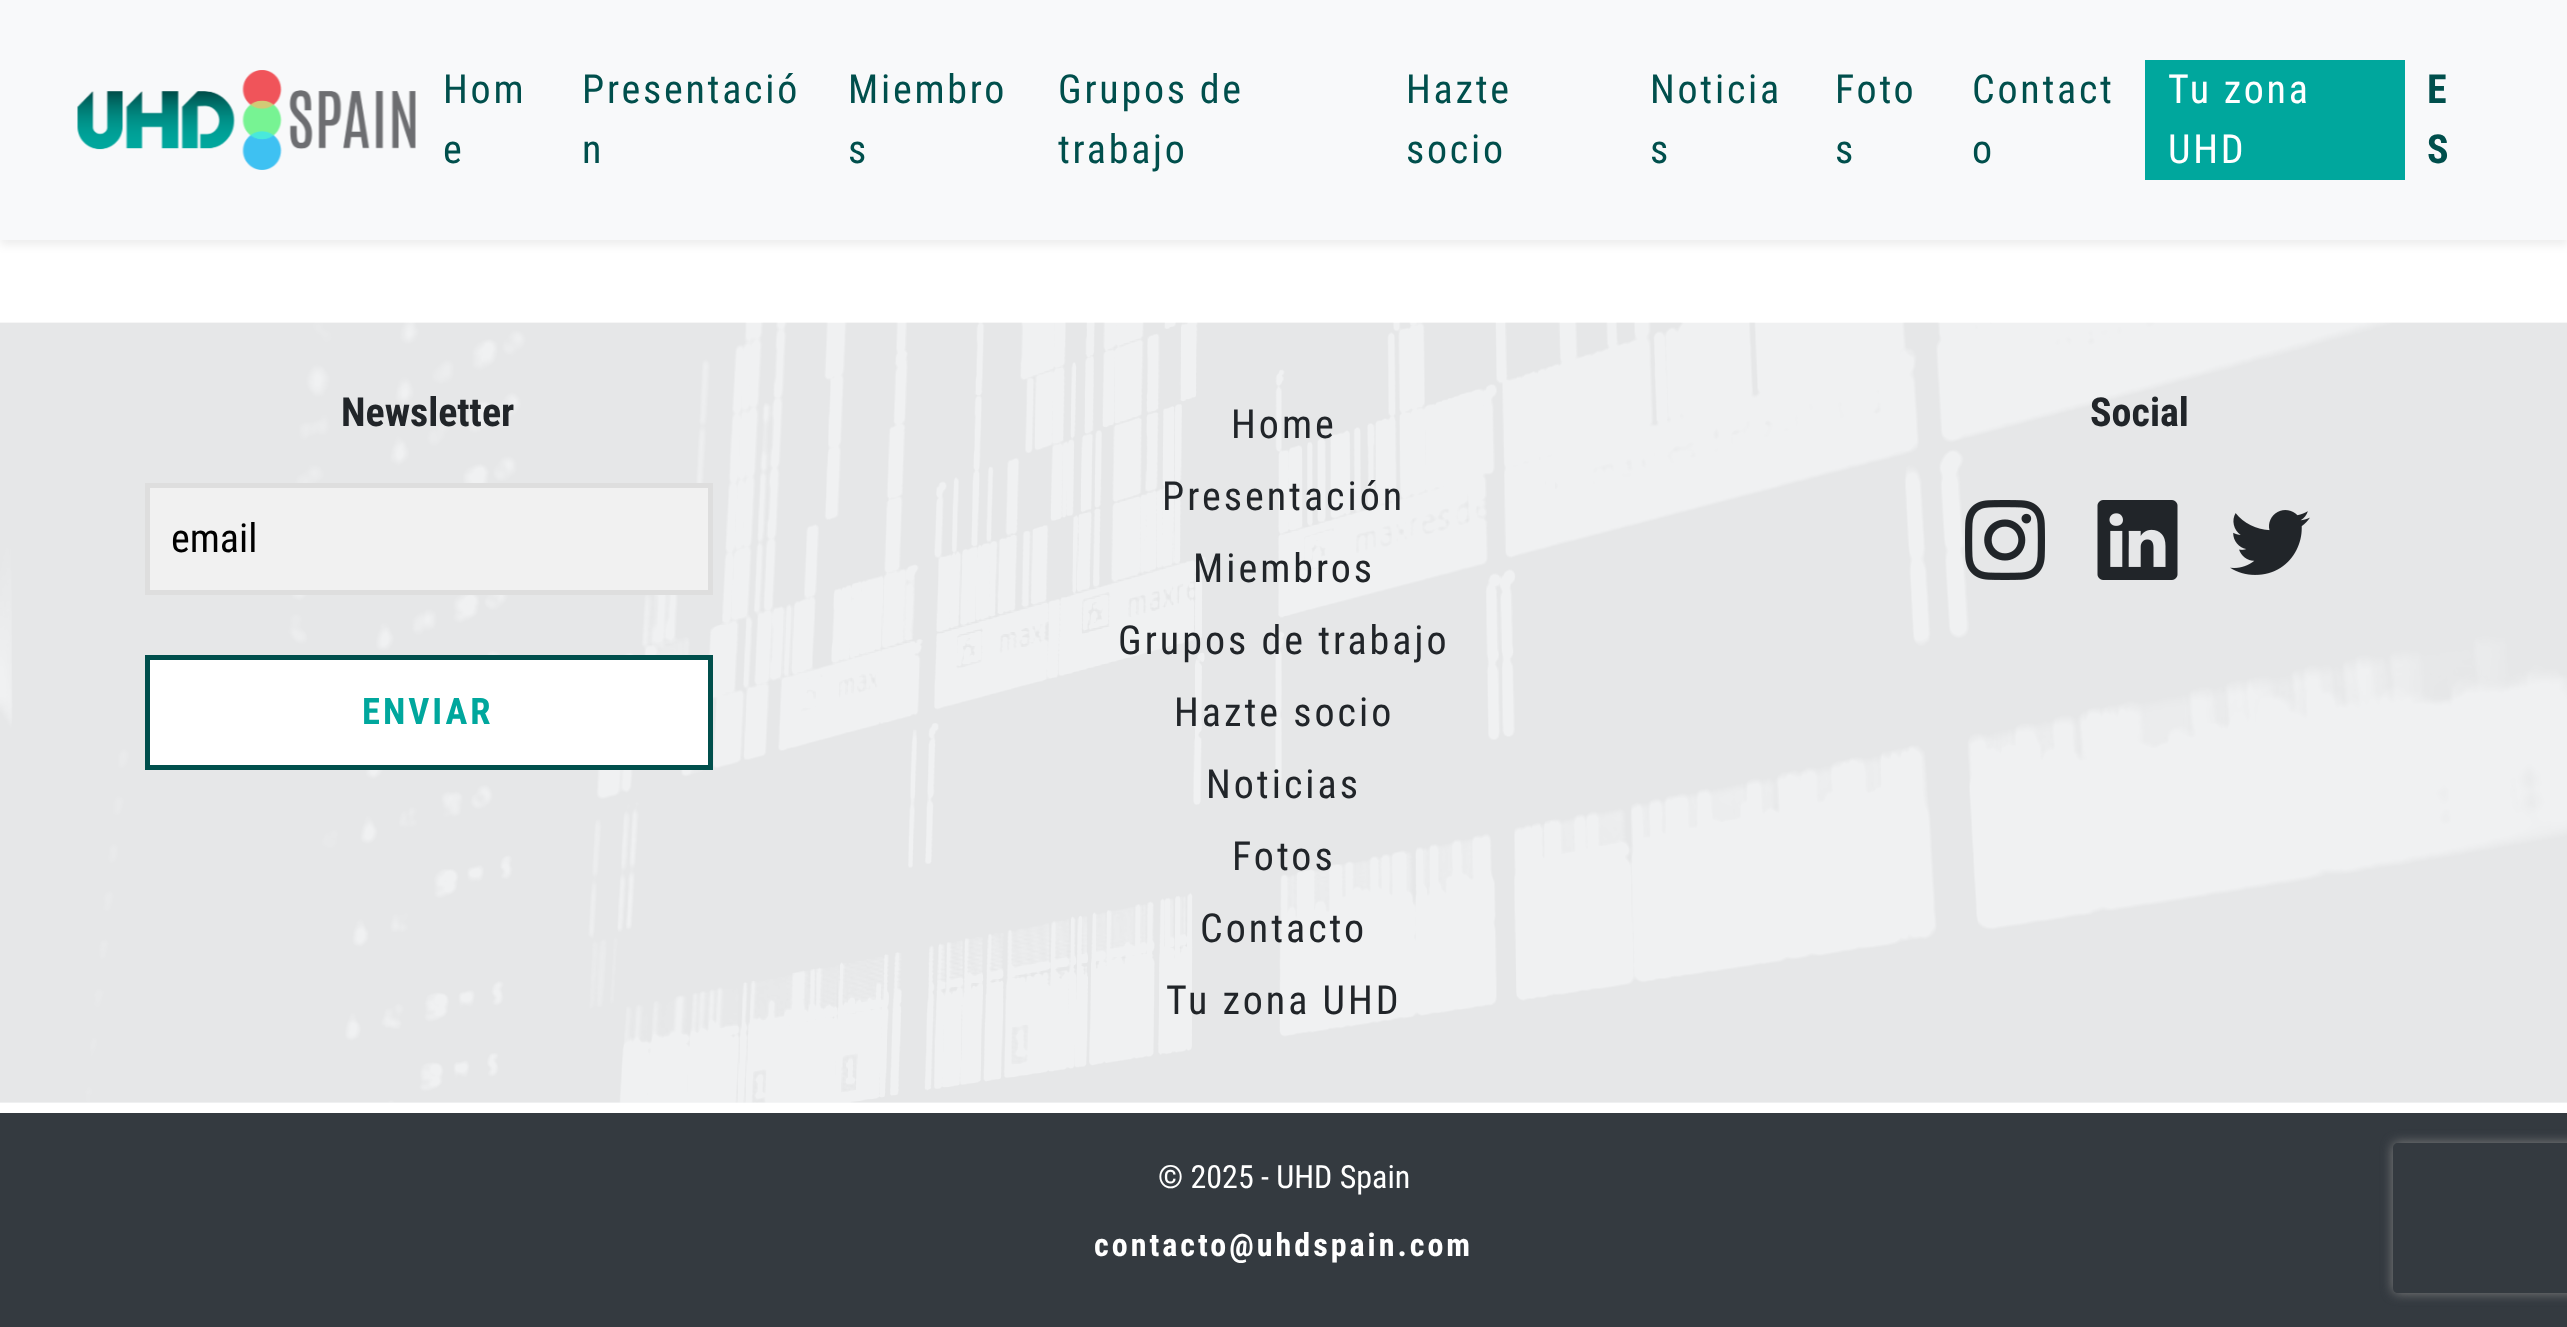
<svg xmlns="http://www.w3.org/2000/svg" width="2567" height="1327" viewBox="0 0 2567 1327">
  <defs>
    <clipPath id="clip1"><path d="M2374 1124H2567V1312H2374ZM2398 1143H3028C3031 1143 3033 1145 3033 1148V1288C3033 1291 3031 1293 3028 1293H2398C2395 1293 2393 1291 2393 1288V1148C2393 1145 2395 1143 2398 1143Z" clip-rule="evenodd"/></clipPath>
  </defs>
  <rect width="100%" height="100%" fill="#fff"/>
  <path d="M0 5h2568v240H0z" fill="#00000012" filter="blur(5px)"/>
  <path d="M0 0h2567v240H0z" fill="#f8f9fa"/>
  <image x="77" y="70" width="339" height="100" href="img/1.png"/>
  <path d="M2145 60h260v120H2145z" fill="#00a79d"/>
  <path d="M0 323h2567v780H0z" fill="#f8f9fa"/>
  <image x="0" y="322" width="2567" height="781" href="img/2.png"/>
  <path d="M147.5 485.5h563v107H147.5z" fill="#f1f1f1" stroke="#dedede" stroke-width="5"/>
  <path d="M147.5 657.5h563v110H147.5z" fill="#fff" stroke="#004f4c" stroke-width="5"/>
  <image x="1965" y="500" width="80" height="80" href="img/3.png"/>
  <image x="2097" y="500" width="81" height="80" href="img/4.png"/>
  <image x="2230" y="510" width="80" height="65" href="img/5.png"/>
  <path d="M0 1113h2567v214H0z" fill="#343a40"/>
  <g clip-path="url(#clip1)">
    <rect x="2393" y="1143" width="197" height="150" rx="5" fill="#808080" filter="blur(6px)"/>
  </g>
  <g font-family="Roboto Condensed" font-size="40" letter-spacing="2.75" fill="#004f4c">
    <text x="443" y="103">Hom</text>
    <text x="443" y="163">e</text>
    <text x="582" y="103">Presentació</text>
    <text x="582" y="163">n</text>
    <text x="848" y="103">Miembro</text>
    <text x="848" y="163">s</text>
    <text x="1058" y="103">Grupos de</text>
    <text x="1058" y="163">trabajo</text>
    <text x="1406" y="103">Hazte</text>
    <text x="1406" y="163">socio</text>
    <text x="1650" y="103">Noticia</text>
    <text x="1650" y="163">s</text>
    <text x="1835" y="103">Foto</text>
    <text x="1835" y="163">s</text>
    <text x="1972" y="103">Contact</text>
    <text x="1972" y="163">o</text>
  </g>
  <g font-family="Roboto Condensed" font-size="40" letter-spacing="2.75" fill="#fff">
    <text x="2168" y="103">Tu zona</text>
    <text x="2168" y="163">UHD</text>
  </g>
  <g font-family="Roboto Condensed" font-size="40" font-weight="bold" letter-spacing="2.75" fill="#004f4c">
    <text x="2427" y="103">E</text>
    <text x="2427" y="163">S</text>
  </g>
  <text x="341" y="426" font-family="Roboto Condensed" font-size="40" font-weight="bold" fill="#212529">Newsletter</text>
  <text x="171" y="552" font-family="Roboto Condensed" font-size="40" fill="#000">email</text>
  <text x="362" y="724" font-family="Roboto Condensed" font-size="36.5" font-weight="bold" letter-spacing="3" fill="#00a79d">ENVIAR</text>
  <g font-family="Roboto Condensed" font-size="40" letter-spacing="3" fill="#212529">
    <text x="1231" y="438">Home</text>
    <text x="1162" y="510">Presentación</text>
    <text x="1193" y="582">Miembros</text>
    <text x="1118" y="654">Grupos de trabajo</text>
    <text x="1174" y="726">Hazte socio</text>
    <text x="1206" y="798">Noticias</text>
    <text x="1232" y="870">Fotos</text>
    <text x="1200" y="942">Contacto</text>
    <text x="1166" y="1014">Tu zona UHD</text>
  </g>
  <text x="2090" y="426" font-family="Roboto Condensed" font-size="40" font-weight="bold" fill="#212529">Social</text>
  <text x="1158" y="1188" font-family="Roboto Condensed" font-size="32" fill="#fff">© 2025 - UHD Spain</text>
  <text x="1094" y="1256" font-family="Roboto Condensed" font-size="32" font-weight="bold" letter-spacing="3" fill="#fff">contacto@uhdspain.com</text>
</svg>
